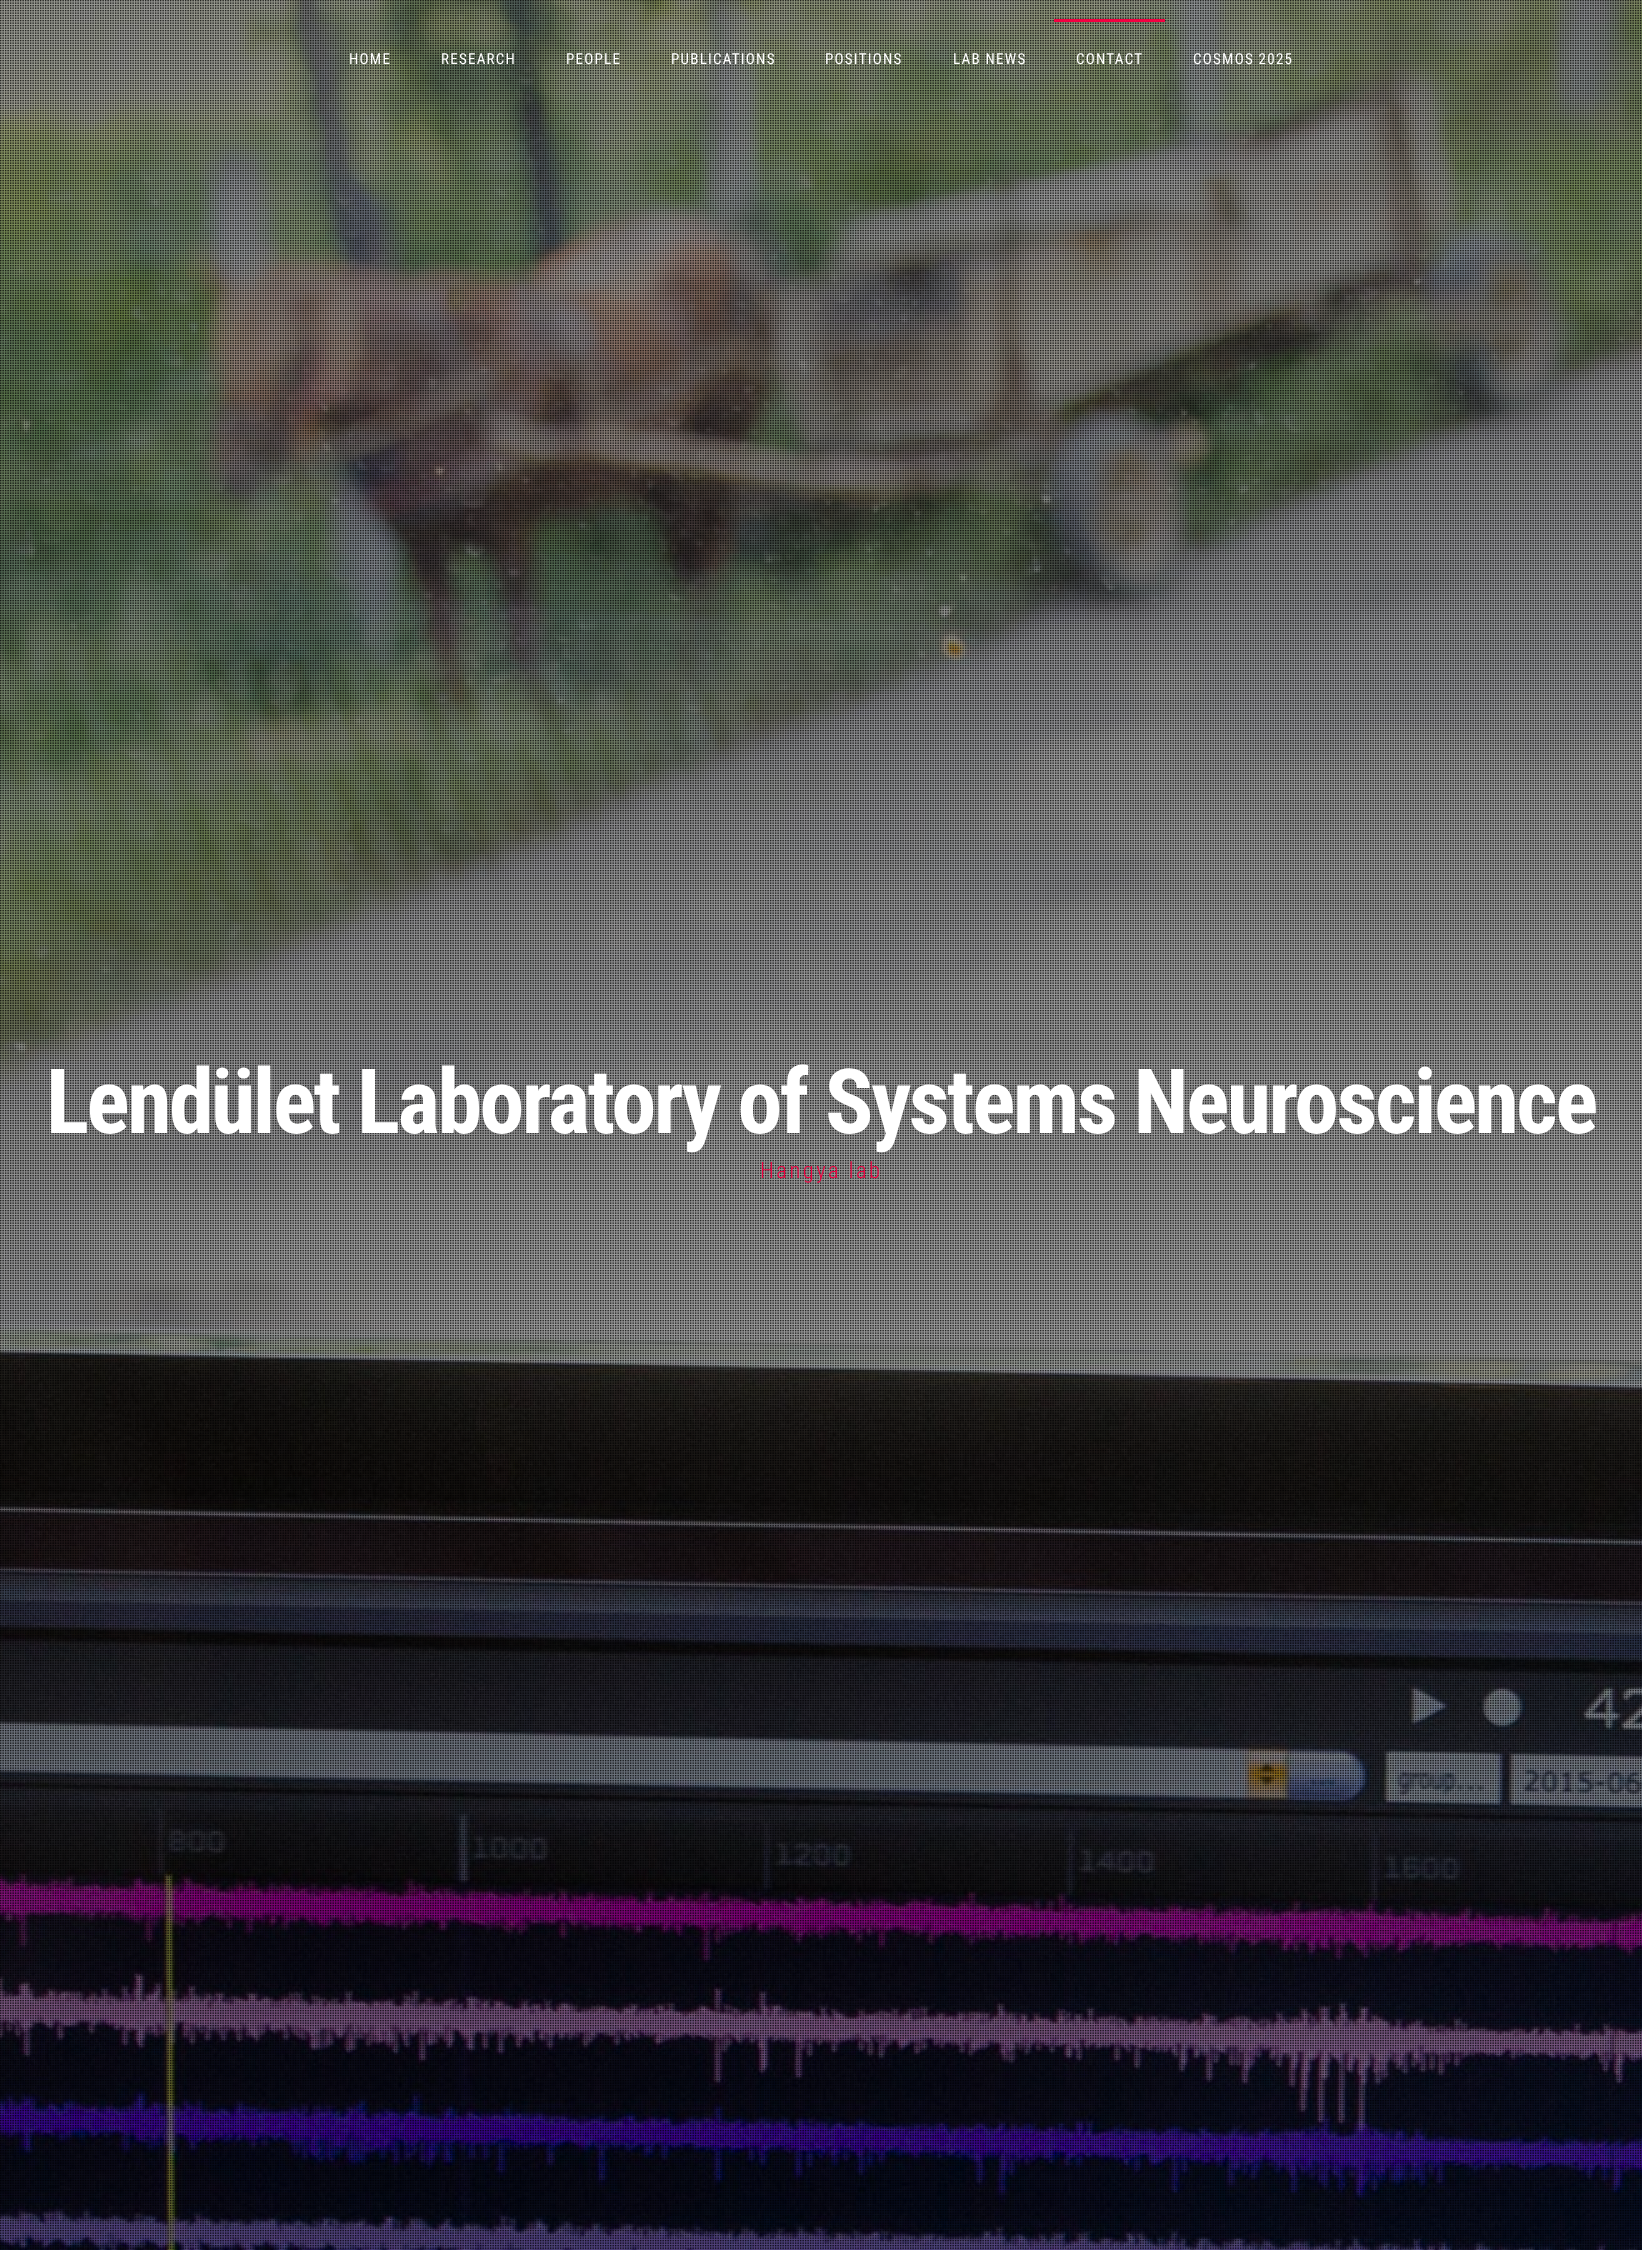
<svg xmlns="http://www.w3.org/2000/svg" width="1642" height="2250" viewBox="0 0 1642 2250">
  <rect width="100%" height="100%" fill="#fff"/>
  <image x="0" y="0" width="1642" height="2250" href="img/1.png"/>
  <image x="0" y="0" width="1642" height="2250" href="img/2.png"/>
  <path d="M1054 19h111v3H1054z" fill="#f40041"/>
  <g font-family="Roboto Condensed" font-size="15" letter-spacing="1.25" fill="#fff">
    <text x="349" y="64">HOME</text>
    <text x="441" y="64">RESEARCH</text>
    <text x="566" y="64">PEOPLE</text>
    <text x="671" y="64">PUBLICATIONS</text>
    <text x="825" y="64">POSITIONS</text>
    <text x="953" y="64">LAB NEWS</text>
    <text x="1076" y="64">CONTACT</text>
    <text x="1193" y="64">COSMOS 2025</text>
  </g>
  <text x="46" y="1133" font-family="Roboto Condensed" font-size="90" font-weight="bold" letter-spacing="-2.5" fill="#fff">Lendület Laboratory of Systems Neuroscience</text>
  <text x="760" y="1178" font-family="Roboto Condensed" font-size="22.5" font-weight="300" letter-spacing="2.5" fill="#f40041">Hangya lab</text>
</svg>
